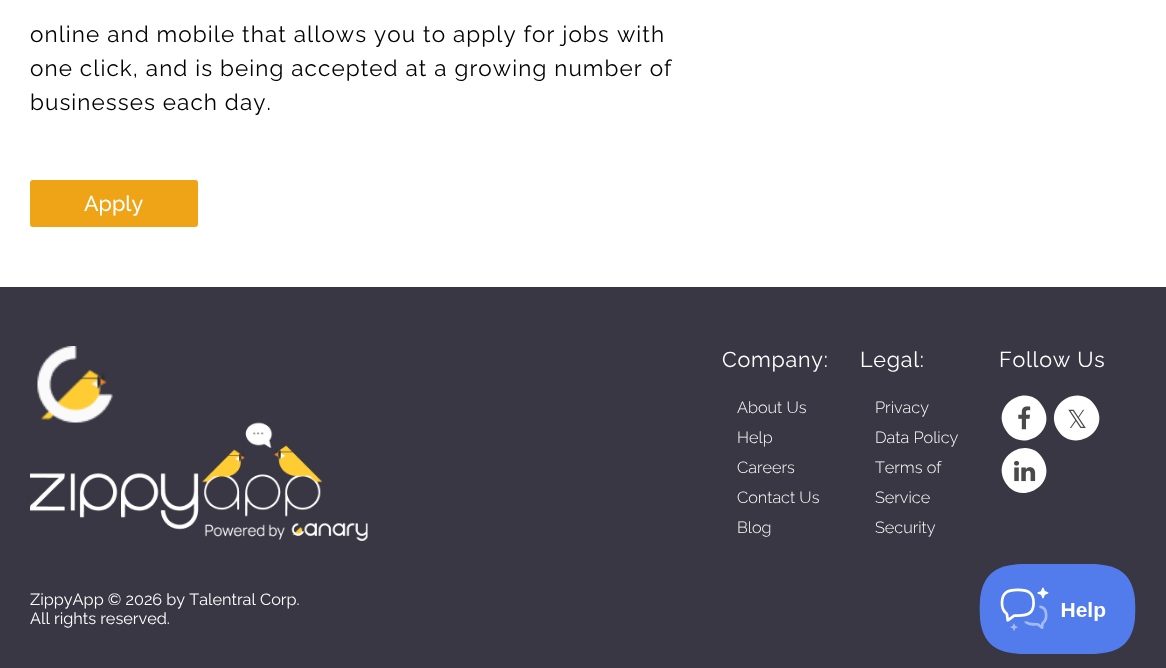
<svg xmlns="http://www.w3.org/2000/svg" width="1166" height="668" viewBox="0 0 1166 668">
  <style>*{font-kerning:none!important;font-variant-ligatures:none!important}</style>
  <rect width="100%" height="100%" fill="#fff"/>
  <rect x="30" y="180" width="168" height="47" rx="3" fill="#eea416"/>
  <path d="M0 287h1166v381H0z" fill="#393744"/>
  <image x="37" y="346" width="76" height="77" href="img/1.png"/>
  <image x="30" y="422" width="338" height="119" href="img/2.png"/>
  <path d="M1043 407C1058 432 1020 455 1005 429C990 404 1029 381 1043 407Z" fill="#fff"/>
  <image x="1018" y="406" width="13" height="24" href="img/3.png"/>
  <path d="M1096 407C1111 432 1072 455 1057 429C1043 404 1081 381 1096 407Z" fill="#fff"/>
  <path d="M1043 459C1058 485 1020 507 1005 482C990 456 1029 434 1043 459Z" fill="#fff"/>
  <image x="1014" y="460" width="22" height="22" href="img/4.png"/>
  <image x="979" y="564" width="157" height="90" href="img/5.png"/>
  <g font-family="Raleway" font-size="22.5" letter-spacing="1.08" fill="#000">
    <text x="30" y="42">online and mobile that allows you to apply for jobs</text>
    <text x="617" y="42">with</text>
    <text x="30" y="76">one click, and is being accepted at a growing number of</text>
    <text x="30" y="110">businesses each day.</text>
  </g>
  <text x="84" y="211" font-family="Raleway" font-size="21.5" font-weight="500" fill="#fff">Apply</text>
  <text x="722" y="367" font-family="Raleway" font-size="21.5" letter-spacing="0.75" fill="#fff">Company:</text>
  <g font-family="Raleway" font-size="16.25" font-weight="300" fill="#fff">
    <text x="737" y="413">About Us</text>
    <text x="737" y="443">Help</text>
    <text x="737" y="473">Careers</text>
    <text x="737" y="503">Contact Us</text>
    <text x="737" y="533">Blog</text>
  </g>
  <text x="860" y="367" font-family="Raleway" font-size="21.5" letter-spacing="0.75" fill="#fff">Legal:</text>
  <g font-family="Raleway" font-size="16.25" font-weight="300" fill="#fff">
    <text x="875" y="413">Privacy</text>
    <text x="875" y="443">Data Policy</text>
    <text x="875" y="473">Terms of</text>
    <text x="875" y="503">Service</text>
    <text x="875" y="533">Security</text>
  </g>
  <text x="999" y="367" font-family="Raleway" font-size="21.5" letter-spacing="0.75" fill="#fff">Follow Us</text>
  <text x="1067" y="428" font-family="DejaVu Sans" font-size="25" fill="#4a4a4a">𝕏</text>
  <g font-family="Raleway" font-size="16.25" fill="#fff">
    <text x="30" y="605">ZippyApp © 2026 by Talentral Corp.</text>
    <text x="30" y="624">All rights reserved.</text>
  </g>
</svg>
